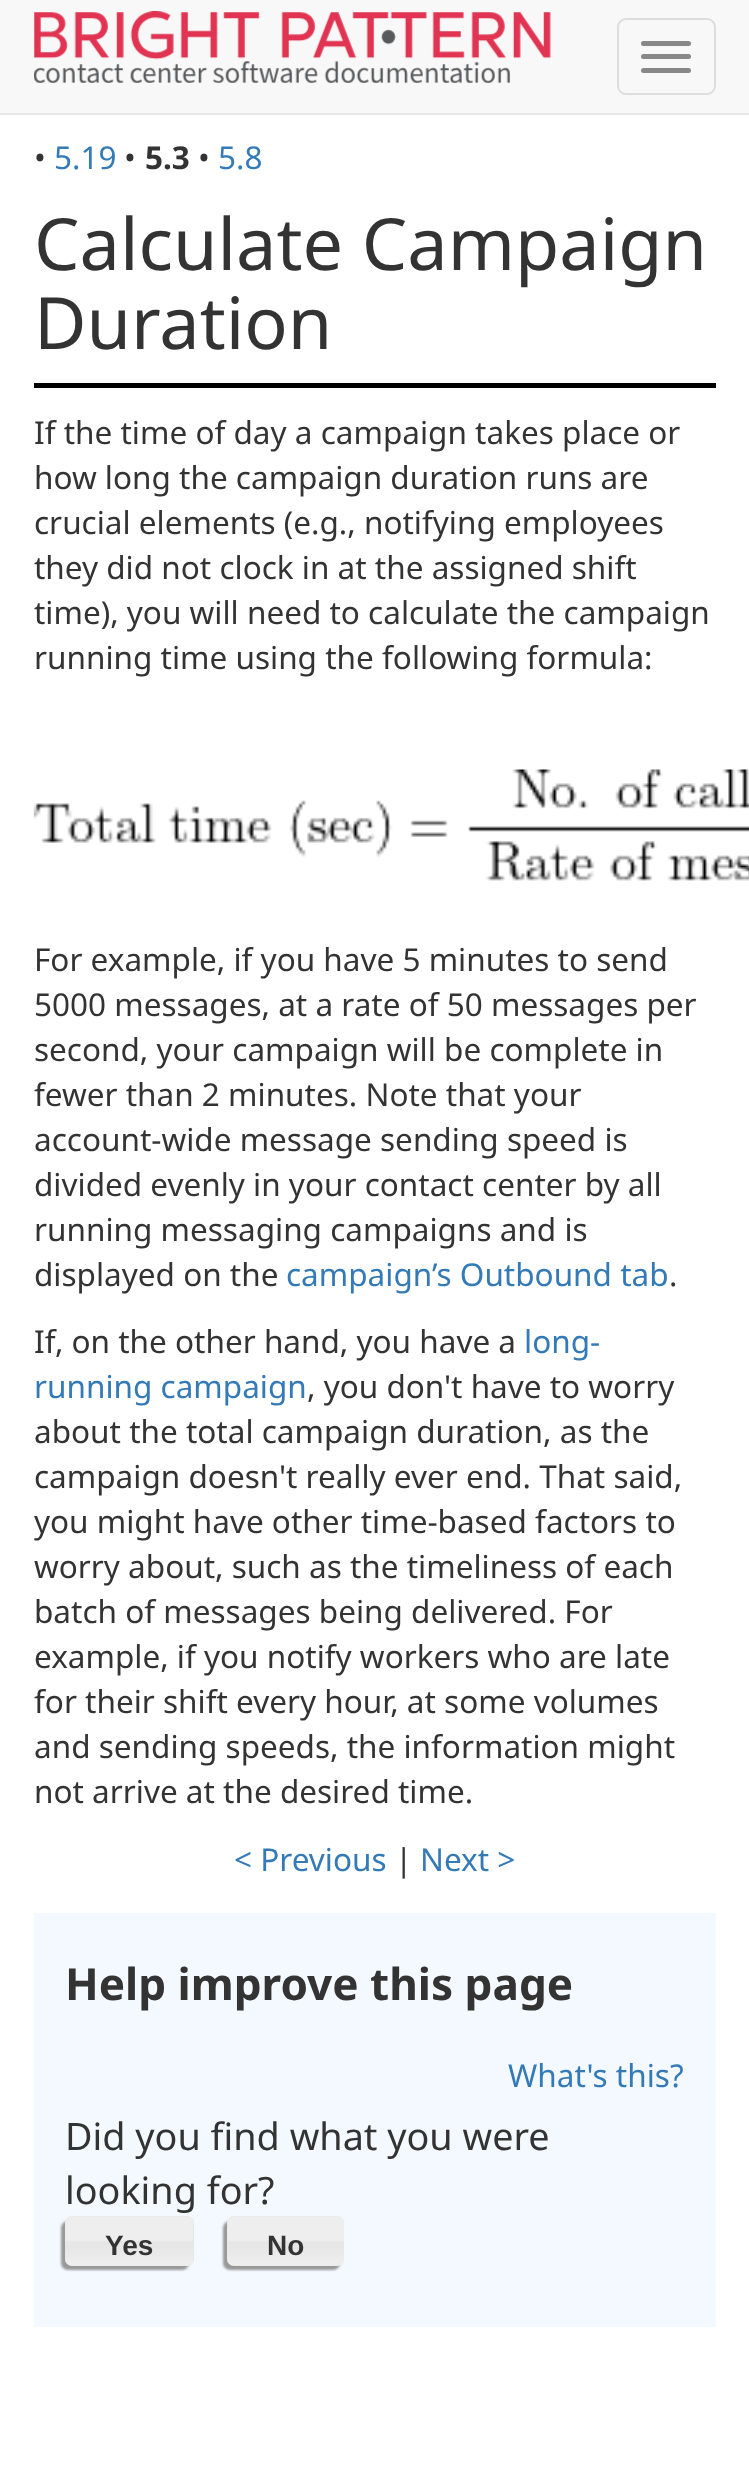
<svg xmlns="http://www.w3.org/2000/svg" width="749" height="2474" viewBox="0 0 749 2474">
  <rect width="100%" height="100%" fill="#fff"/>
  <path d="M0 0h749v113H0z" fill="#f8f8f8"/>
  <path d="M0 113h749v2H0z" fill="#e7e7e7"/>
  <image x="34" y="11" width="517" height="72" href="img/1.png"/>
  <rect x="618" y="19" width="97" height="75" rx="8" fill="none" stroke="#ddd" stroke-width="2"/>
  <rect x="641" y="41" width="50" height="5" rx="2.5" fill="#888"/>
  <rect x="641" y="54" width="50" height="5" rx="2.5" fill="#888"/>
  <rect x="641" y="68" width="50" height="5" rx="2.5" fill="#888"/>
  <path d="M34 383h682v5H34z" fill="#000"/>
  <image x="33" y="769" width="716" height="112" href="img/2.png"/>
  <path d="M34 1913h682v414H34z" fill="#f3f9ff"/>
  <rect x="61" y="2221" width="128" height="49" rx="7" fill="#999" filter="blur(1px)"/>
  <rect x="65" y="2216" width="129" height="50" rx="7" fill="#e6e6e6"/>
  <image x="65" y="2216" width="128" height="50" href="img/3.png"/>
  <rect x="223" y="2221" width="117" height="49" rx="7" fill="#999" filter="blur(1px)"/>
  <rect x="227" y="2216" width="117" height="50" rx="7" fill="#e6e6e6"/>
  <image x="227" y="2216" width="117" height="50" href="img/4.png"/>
  <text x="34" y="169" font-family="Noto Sans" font-size="31.5" fill="#333">•</text>
  <text x="54" y="169" font-family="Noto Sans" font-size="31.5" fill="#337ab7">5.19</text>
  <text x="124" y="169" font-family="Noto Sans" font-size="31.5" fill="#333">•</text>
  <text x="145" y="169" font-family="Noto Sans" font-size="31.5" font-weight="bold" fill="#333">5.3</text>
  <text x="198" y="169" font-family="Noto Sans" font-size="31.5" fill="#333">•</text>
  <text x="218" y="169" font-family="Noto Sans" font-size="31.5" fill="#337ab7">5.8</text>
  <g font-family="Noto Sans" font-size="72" fill="#333">
    <text x="34" y="270">Calculate Campaign</text>
    <text x="34" y="349">Duration</text>
  </g>
  <g font-family="Noto Sans" font-size="31.5" fill="#333">
    <text x="34" y="444">If the time of day a campaign takes place or</text>
    <text x="34" y="489">how long the campaign duration runs are</text>
    <text x="34" y="534">crucial elements (e.g., notifying employees</text>
    <text x="34" y="579">they did not clock in at the assigned shift</text>
    <text x="34" y="624">time), you will need to calculate the campaign</text>
    <text x="34" y="669">running time using the following formula:</text>
    <text x="34" y="971">For example, if you have 5 minutes to send</text>
    <text x="34" y="1016">5000 messages, at a rate of 50 messages per</text>
    <text x="34" y="1061">second, your campaign will be complete in</text>
    <text x="34" y="1106">fewer than 2 minutes. Note that your</text>
    <text x="34" y="1151">account-wide message sending speed is</text>
    <text x="34" y="1196">divided evenly in your contact center by all</text>
    <text x="34" y="1241">running messaging campaigns and is</text>
    <text x="34" y="1286">displayed on the</text>
  </g>
  <text x="286" y="1286" font-family="Noto Sans" font-size="31.5" fill="#337ab7">campaign’s Outbound tab</text>
  <g font-family="Noto Sans" font-size="31.5" fill="#333">
    <text x="669" y="1286">.</text>
    <text x="34" y="1353">If, on the other hand, you have a</text>
  </g>
  <g font-family="Noto Sans" font-size="31.5" fill="#337ab7">
    <text x="524" y="1353">long-</text>
    <text x="34" y="1398">running campaign</text>
  </g>
  <g font-family="Noto Sans" font-size="31.5" fill="#333">
    <text x="307" y="1398">, you don't have to worry</text>
    <text x="34" y="1443">about the total campaign duration, as the</text>
    <text x="34" y="1488">campaign doesn't really ever end. That said,</text>
    <text x="34" y="1533">you might have other time-based factors to</text>
    <text x="34" y="1578">worry about, such as the timeliness of each</text>
    <text x="34" y="1623">batch of messages being delivered. For</text>
    <text x="34" y="1668">example, if you notify workers who are late</text>
    <text x="34" y="1713">for their shift every hour, at some volumes</text>
    <text x="34" y="1758">and sending speeds, the information might</text>
    <text x="34" y="1803">not arrive at the desired time.</text>
  </g>
  <text x="234" y="1871" font-family="Noto Sans" font-size="31.5" fill="#337ab7">&lt; Previous</text>
  <text x="395" y="1871" font-family="Noto Sans" font-size="31.5" fill="#333">|</text>
  <text x="420" y="1871" font-family="Noto Sans" font-size="31.5" fill="#337ab7">Next &gt;</text>
  <text x="65" y="2000" font-family="Noto Sans" font-size="44.1" font-weight="bold" fill="#333">Help improve this page</text>
  <text x="508" y="2087" font-family="Noto Sans" font-size="31.5" fill="#337ab7">What's this?</text>
  <g font-family="Noto Sans" font-size="37.75" fill="#333">
    <text x="65" y="2150">Did you find what you were</text>
    <text x="65" y="2204">looking for?</text>
  </g>
  <g font-family="Liberation Sans" font-size="28" font-weight="bold" fill="#333">
    <text x="105" y="2255">Yes</text>
    <text x="267" y="2255">No</text>
  </g>
</svg>
